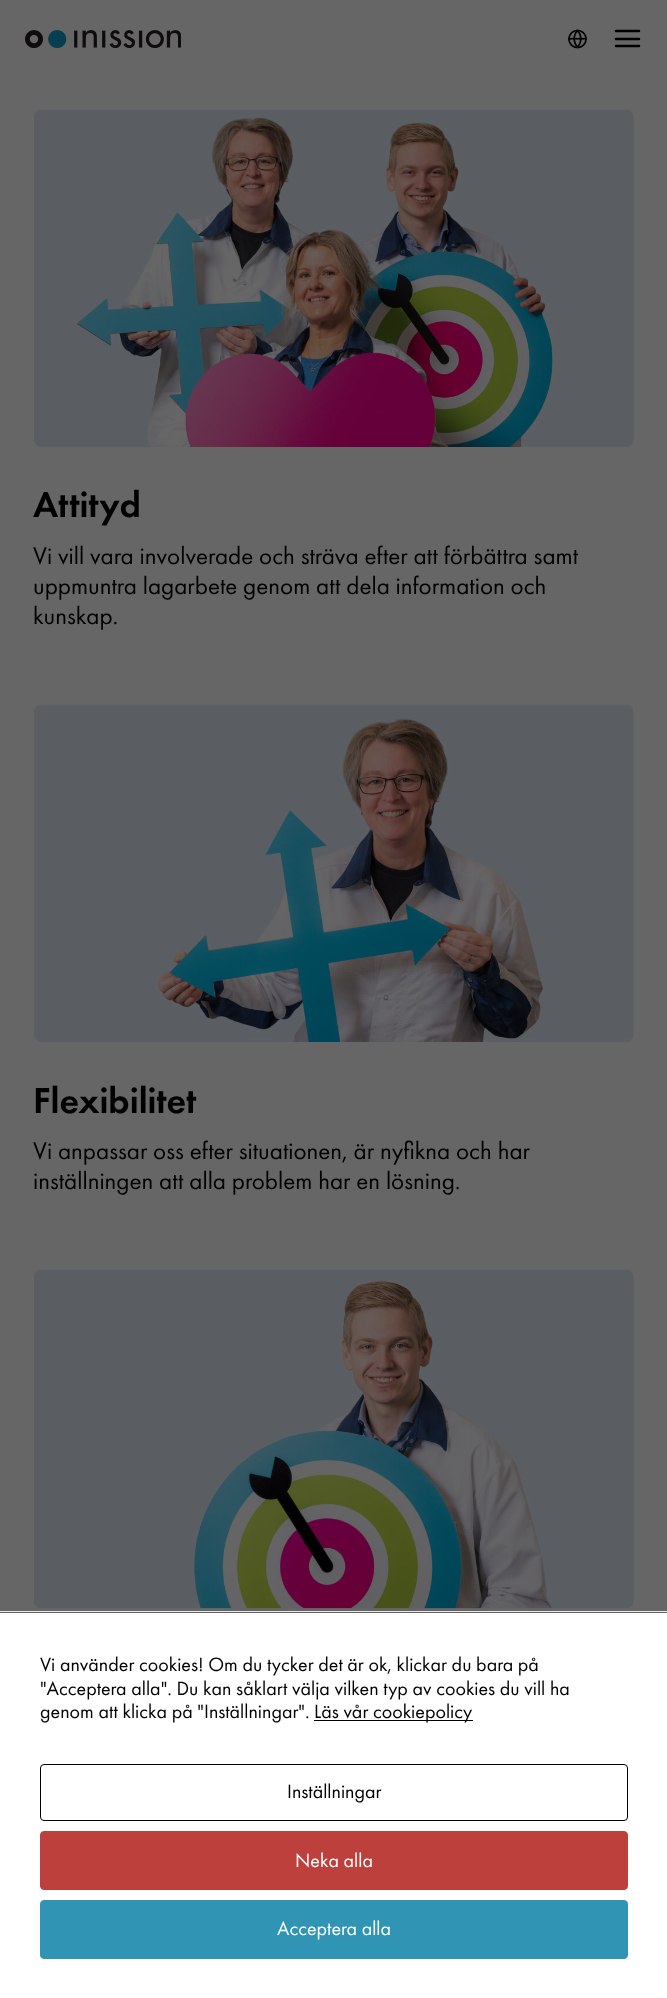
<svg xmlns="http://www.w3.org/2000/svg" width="667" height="1998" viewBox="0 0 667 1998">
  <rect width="100%" height="100%" fill="#666"/>
  <image x="25" y="30" width="156" height="18" href="img/1.png"/>
  <image x="568" y="29" width="19" height="20" href="img/2.png"/>
  <path d="M616 39H639M616 31H639M616 46H639" fill="none" stroke="#000" stroke-width="2.5" stroke-linecap="round" stroke-linejoin="round"/>
  <image x="34" y="109" width="600" height="338" href="img/3.png"/>
  <image x="34" y="704" width="600" height="338" href="img/4.png"/>
  <image x="34" y="1269" width="600" height="340" href="img/5.png"/>
  <path d="M0 1613h667v385H0z" fill="#fff"/>
  <path d="M0 1611h667v1H0z" fill="#e6e6e6"/>
  <path d="M314 1720h159v1H314z" fill="#000"/>
  <rect x="40.5" y="1764.5" width="587" height="56" rx="3.5" fill="none" stroke="#000"/>
  <rect x="40.5" y="1831.5" width="587" height="58" rx="3.5" fill="#bd403c" stroke="#bd403c"/>
  <rect x="40.5" y="1900.5" width="587" height="58" rx="3.5" fill="#3095b4" stroke="#3095b4"/>
  <text x="33" y="517" font-family="Futura PT" font-size="37.5" font-weight="500" fill="#000">Attityd</text>
  <g font-family="Futura PT" font-size="25" fill="#000">
    <text x="33" y="564">Vi vill vara involverade och sträva efter att förbättra samt</text>
    <text x="33" y="594">uppmuntra lagarbete genom att dela information och</text>
    <text x="33" y="624">kunskap.</text>
  </g>
  <text x="33" y="1113" font-family="Futura PT" font-size="37.5" font-weight="500" fill="#000">Flexibilitet</text>
  <g font-family="Futura PT" font-size="25" fill="#000">
    <text x="33" y="1159">Vi anpassar oss efter situationen, är nyfikna och har</text>
    <text x="33" y="1189">inställningen att alla problem har en lösning.</text>
  </g>
  <g font-family="Futura PT" font-size="20" fill="#000">
    <text x="40" y="1671">Vi använder cookies! Om du tycker det är ok, klickar du bara på</text>
    <text x="40" y="1695">"Acceptera alla". Du kan såklart välja vilken typ av cookies du vill ha</text>
    <text x="40" y="1718">genom att klicka på "Inställningar".</text>
    <text x="314" y="1718">Läs vår cookiepolicy</text>
    <text x="287" y="1798">Inställningar</text>
  </g>
  <g font-family="Futura PT" font-size="20" fill="#fff">
    <text x="295" y="1867">Neka alla</text>
    <text x="277" y="1935">Acceptera alla</text>
  </g>
</svg>
